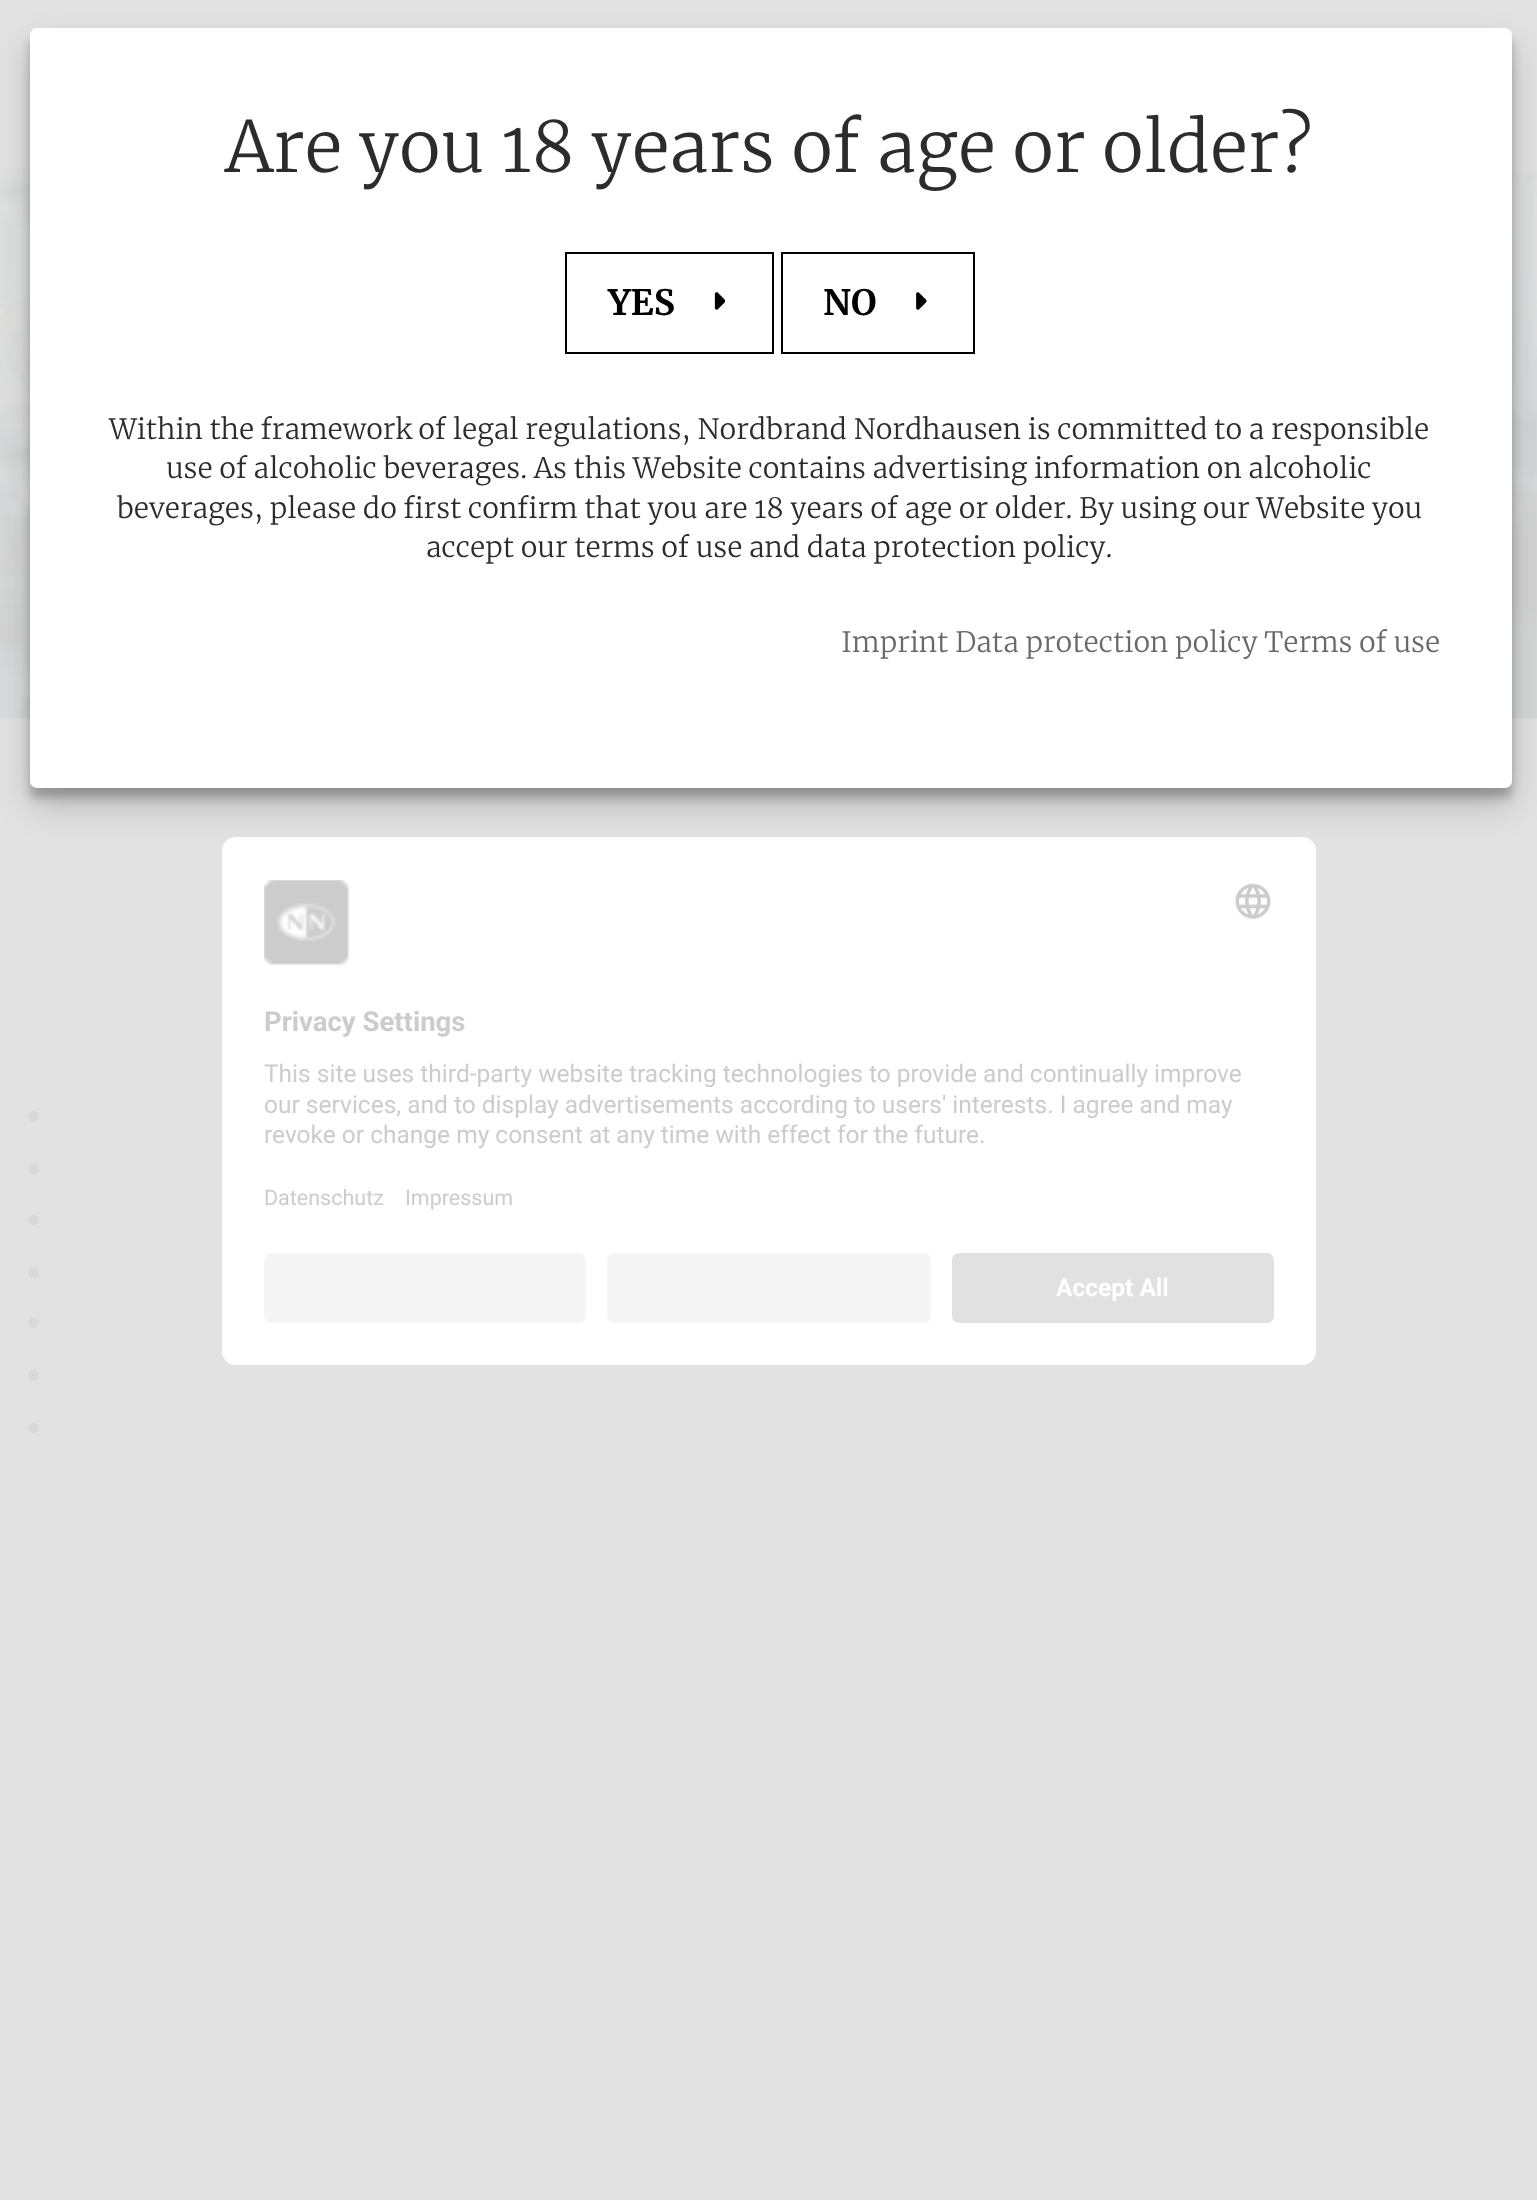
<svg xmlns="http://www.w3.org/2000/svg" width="1537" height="2200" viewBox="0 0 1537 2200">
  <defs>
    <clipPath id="clip1"><rect x="222" y="837" width="1094" height="528" rx="14"/></clipPath>
    <clipPath id="clip2"><path d="M236 837H1302C1309.5 837 1316 843.5 1316 851V1239H222V851C222 843.5 228.5 837 236 837Z"/></clipPath>
  </defs>
  <rect width="100%" height="100%" fill="#e2e2e2"/>
  <image x="0" y="168" width="1537" height="551" href="img/3.png"/>
  <rect x="30" y="39" width="1482" height="759" rx="7" fill="#0000003b" filter="blur(5px)"/>
  <rect x="222" y="837" width="1094" height="528" rx="14" fill="#fff"/>
  <g clip-path="url(#clip1)">
    <g clip-path="url(#clip2)">
      <path d="M222 838h1094v401H222z" fill="#fff"/>
    </g>
  </g>
  <rect x="30" y="46" width="1482" height="759" rx="7" fill="#00000030" filter="blur(17.5px)"/>
  <rect x="30" y="28" width="1482" height="760" rx="7" fill="#fff"/>
  <path d="M566 253h207v100H566z" fill="none" stroke="#000" stroke-width="2"/>
  <image x="714" y="292" width="11" height="18" href="img/1.png"/>
  <path d="M782 253h192v100H782z" fill="none" stroke="#000" stroke-width="2"/>
  <image x="916" y="292" width="11" height="18" href="img/2.png"/>
  <circle cx="33.5" cy="1116.5" r="5.5" fill="#d9d9d9"/>
  <rect x="28" y="1164" width="11" height="10" rx="5" fill="#d9d9d9"/>
  <rect x="28" y="1215" width="11" height="10" rx="5" fill="#d9d9d9"/>
  <circle cx="33.5" cy="1272.5" r="5.5" fill="#d9d9d9"/>
  <rect x="28" y="1318" width="11" height="10" rx="5" fill="#d9d9d9"/>
  <circle cx="33.5" cy="1375.5" r="5.5" fill="#d9d9d9"/>
  <rect x="28" y="1423" width="11" height="10" rx="5" fill="#d9d9d9"/>
  <image x="264" y="880" width="86" height="86" href="img/4.png"/>
  <image x="1235" y="883" width="36" height="37" href="img/5.png"/>
  <path d="M222 1239H1316V1351C1316 1358.5 1309.5 1365 1302 1365H236C228.5 1365 222 1358.5 222 1351Z" fill="#fff"/>
  <rect x="264" y="1253" width="322" height="70" rx="7" fill="#f5f5f5"/>
  <rect x="607" y="1253" width="324" height="70" rx="7" fill="#f5f5f5"/>
  <rect x="952" y="1253" width="322" height="70" rx="7" fill="#e1e1e1"/>
  <text x="225" y="172" font-family="Merriweather" font-size="70" font-weight="300" fill="#2c2c2c">Are you 18 years of age or older?</text>
  <g font-family="Merriweather" font-size="35" font-weight="bold" fill="#000">
    <text x="608" y="315">YES</text>
    <text x="823" y="315">NO</text>
  </g>
  <g font-family="Merriweather" font-size="28" font-weight="300" fill="#2c2c2c">
    <text x="109" y="439">Within the framework of legal regulations, Nordbrand Nordhausen is committed to a responsible</text>
    <text x="166" y="478">use of alcoholic beverages. As this Website contains advertising information on alcoholic</text>
    <text x="117" y="518">beverages, please do first confirm that you are 18 years of age or older. By using our Website you</text>
    <text x="426" y="557">accept our terms of use and data protection policy.</text>
  </g>
  <text x="841" y="652" font-family="Merriweather" font-size="28" font-weight="300" fill="#696969">Imprint Data protection policy Terms of use</text>
  <text x="264" y="1031" font-family="Roboto" font-size="27.5" font-weight="bold" fill="#ccc">Privacy Settings</text>
  <g font-family="Roboto" font-size="24.5" fill="#ccc">
    <text x="264" y="1082">This site uses third-party website tracking technologies to provide and continually improve</text>
    <text x="264" y="1113">our services, and to display advertisements according to users' interests. I agree and may</text>
    <text x="264" y="1143">revoke or change my consent at any time with effect for the future.</text>
  </g>
  <g font-family="Roboto" font-size="21.5" fill="#ccc">
    <text x="264" y="1205">Datenschutz</text>
    <text x="405" y="1205">Impressum</text>
  </g>
  <text x="1056" y="1296" font-family="Roboto" font-size="24.5" font-weight="bold" fill="#fff">Accept All</text>
</svg>
